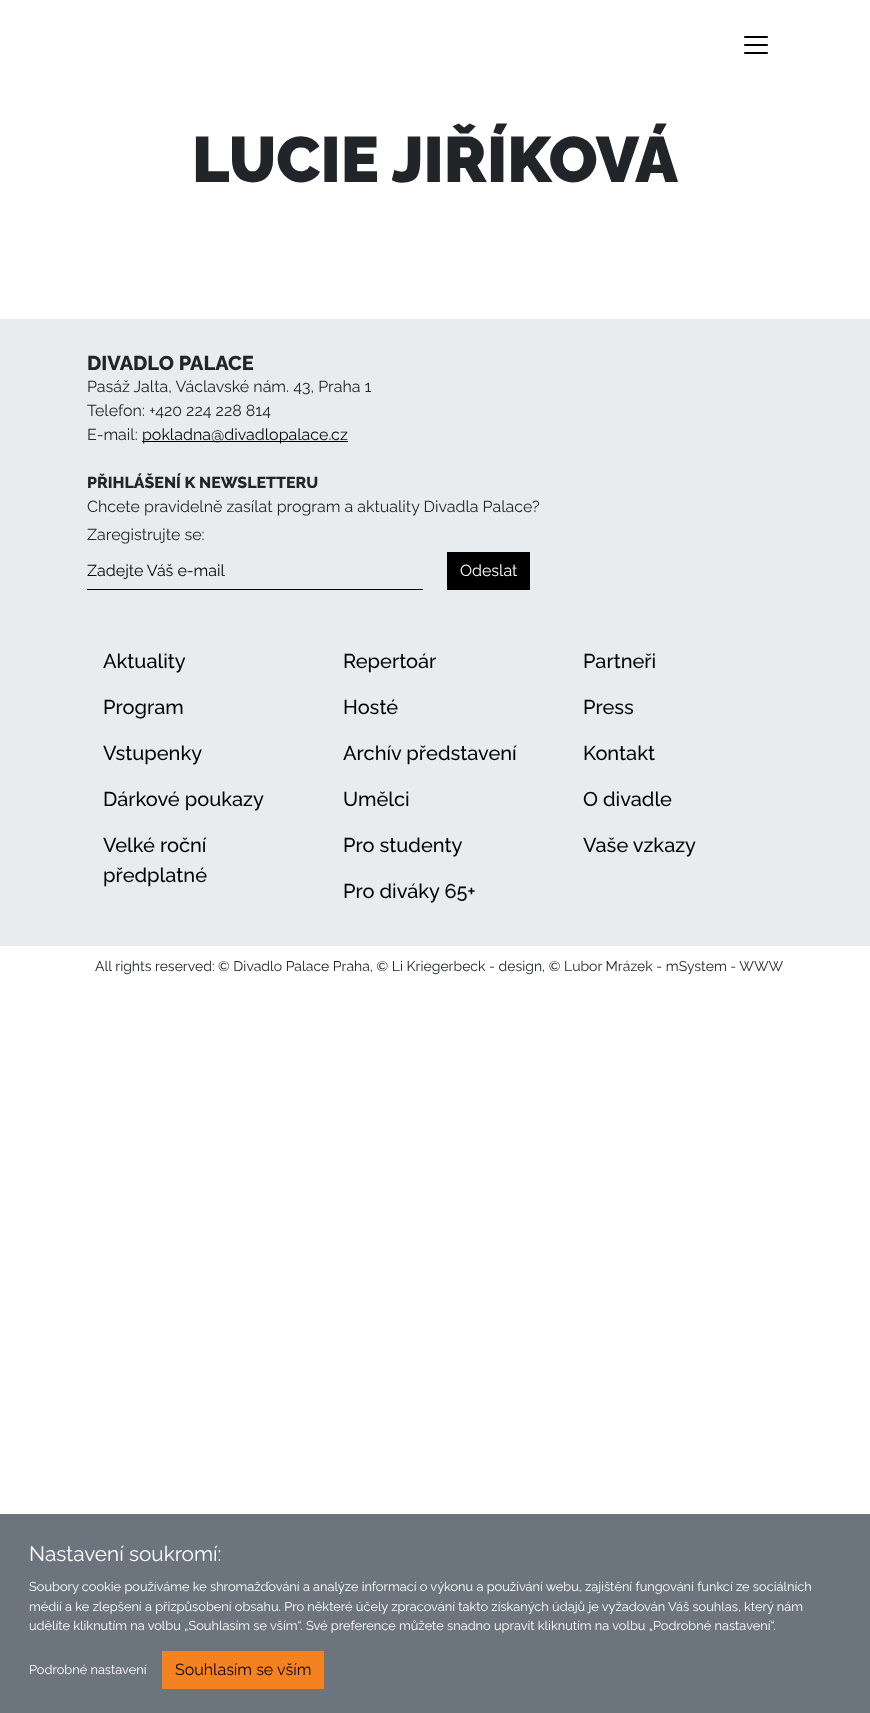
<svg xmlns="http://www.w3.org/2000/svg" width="870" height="1713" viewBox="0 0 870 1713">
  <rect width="100%" height="100%" fill="#fff"/>
  <image x="744" y="36" width="24" height="18" href="img/1.png"/>
  <path d="M0 319h870v627H0z" fill="#e9ecef"/>
  <path d="M142 441h206v1H142z" fill="#000"/>
  <path d="M87 589h336v1H87z" fill="#000"/>
  <path d="M447 552h83v38H447z" fill="#000"/>
  <path d="M0 1514h870v199H0z" fill="#6c757d"/>
  <path d="M162 1651h162v38H162z" fill="#f58220"/>
  <text x="192" y="182" font-family="Raleway" font-size="64" font-weight="900" fill="#212529">LUCIE JIŘÍKOVÁ</text>
  <text x="87" y="370" font-family="Raleway" font-size="20" font-weight="800" fill="#212529">DIVADLO PALACE</text>
  <g font-family="Raleway" font-size="16" fill="#212529">
    <text x="87" y="392">Pasáž Jalta, Václavské nám. 43, Praha 1</text>
    <text x="87" y="416">Telefon: +420 224 228 814</text>
    <text x="87" y="440">E-mail:</text>
  </g>
  <text x="142" y="440" font-family="Raleway" font-size="16" fill="#000">pokladna@divadlopalace.cz</text>
  <text x="87" y="488" font-family="Raleway" font-size="16" font-weight="800" fill="#212529">PŘIHLÁŠENÍ K NEWSLETTERU</text>
  <g font-family="Raleway" font-size="16" fill="#212529">
    <text x="87" y="512">Chcete pravidelně zasílat program a aktuality Divadla Palace?</text>
    <text x="87" y="540">Zaregistrujte se:</text>
  </g>
  <text x="87" y="576" font-family="Raleway" font-size="16" fill="#000">Zadejte Váš e-mail</text>
  <text x="460" y="576" font-family="Raleway" font-size="16" fill="#fff">Odeslat</text>
  <g font-family="Raleway" font-size="20" font-weight="500" fill="#000">
    <text x="103" y="668">Aktuality</text>
    <text x="103" y="714">Program</text>
    <text x="103" y="760">Vstupenky</text>
    <text x="103" y="806">Dárkové poukazy</text>
    <text x="103" y="852">Velké roční</text>
    <text x="103" y="882">předplatné</text>
    <text x="343" y="668">Repertoár</text>
    <text x="343" y="714">Hosté</text>
    <text x="343" y="760">Archív představení</text>
    <text x="343" y="806">Umělci</text>
    <text x="343" y="852">Pro studenty</text>
    <text x="343" y="898">Pro diváky 65+</text>
    <text x="583" y="668">Partneři</text>
    <text x="583" y="714">Press</text>
    <text x="583" y="760">Kontakt</text>
    <text x="583" y="806">O divadle</text>
    <text x="583" y="852">Vaše vzkazy</text>
  </g>
  <text x="95" y="971" font-family="Raleway" font-size="14" fill="#212529">All rights reserved: © Divadlo Palace Praha, © Li Kriegerbeck - design, © Lubor Mrázek - mSystem - WWW</text>
  <text x="29" y="1561" font-family="Raleway" font-size="20.75" fill="#fff">Nastavení soukromí:</text>
  <g font-family="Raleway" font-size="12.8" fill="#fff">
    <text x="29" y="1591">Soubory cookie používáme ke shromažďování a analýze informací o výkonu a používání webu, zajištění fungování funkcí ze sociálních</text>
    <text x="29" y="1611">médií a ke zlepšení a přizpůsobení obsahu. Pro některé účely zpracování takto získaných údajů je vyžadován Váš souhlas, který nám</text>
    <text x="29" y="1630">udělíte kliknutím na volbu „Souhlasím se vším“. Své preference můžete snadno upravit kliknutím na volbu „Podrobné nastavení“.</text>
    <text x="29" y="1674">Podrobné nastavení</text>
  </g>
  <text x="175" y="1675" font-family="Raleway" font-size="16" fill="#000">Souhlasím se vším</text>
</svg>
